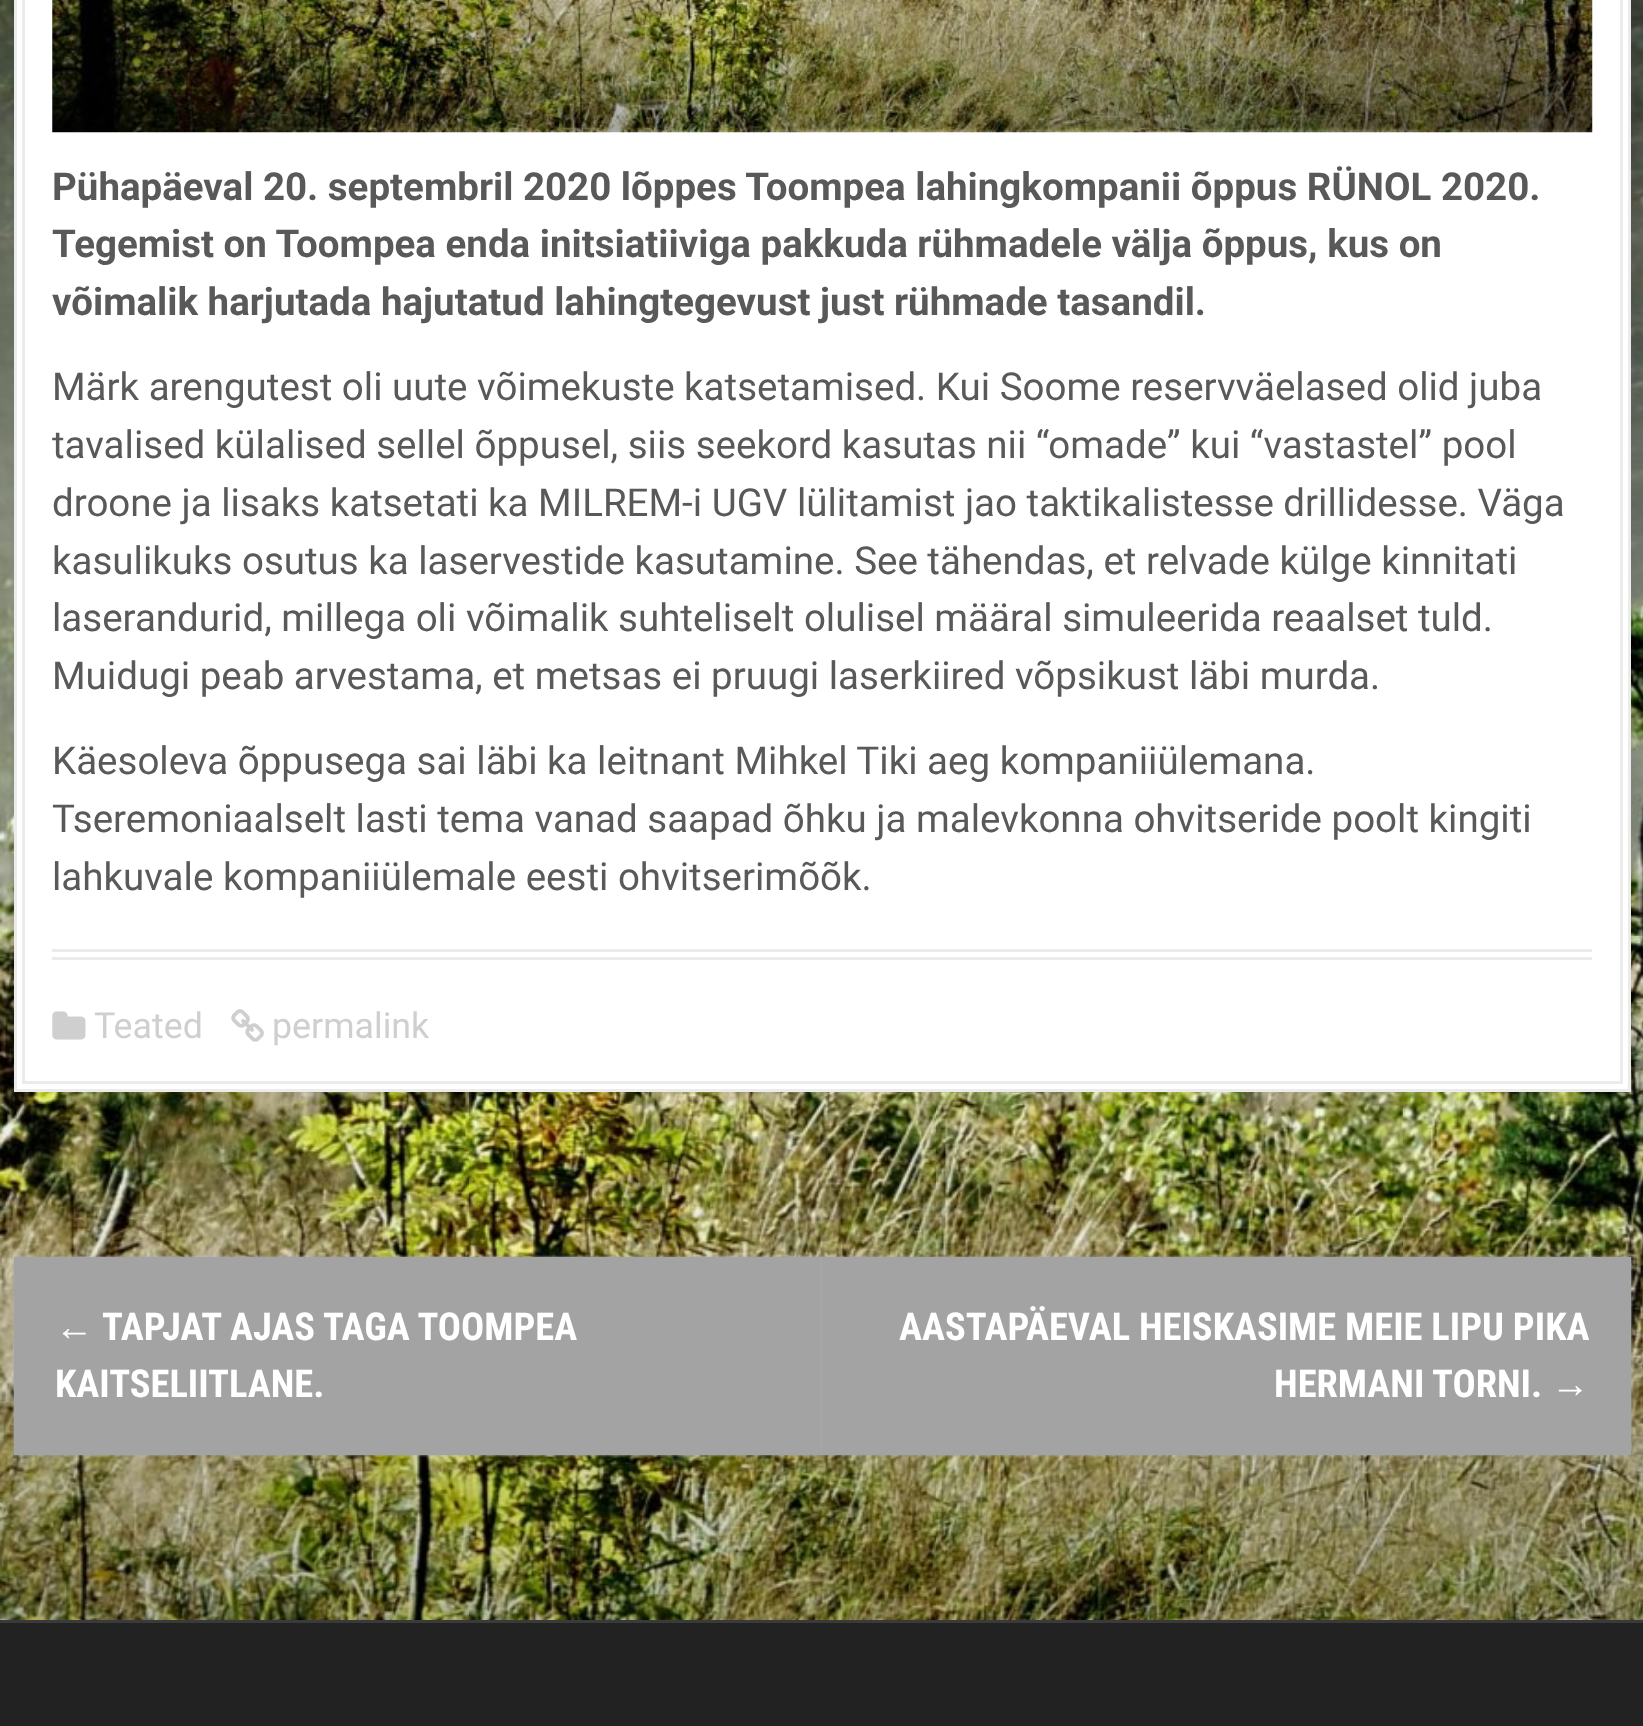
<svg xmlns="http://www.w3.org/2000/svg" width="1643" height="1726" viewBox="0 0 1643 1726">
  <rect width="100%" height="100%" fill="#fff"/>
  <image x="0" y="0" width="1643" height="1620" href="img/1.png"/>
  <path d="M15.5 -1.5h1614v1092H15.5z" fill="#fff" stroke="#ebebeb" stroke-width="3"/>
  <path d="M23.5 -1.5h1598v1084H23.5z" fill="none" stroke="#ebebeb" stroke-width="3"/>
  <image x="52" y="0" width="1541" height="133" href="img/2.png"/>
  <path d="M52 949h1540v3H52z" fill="#ebebeb"/>
  <path d="M52 957h1540v3H52z" fill="#ebebeb"/>
  <image x="52" y="1011" width="34" height="29" href="img/3.png"/>
  <image x="231" y="1009" width="33" height="33" href="img/4.png"/>
  <path d="M14 1257h808v198H14z" fill="#adadad" filter="blur(1.5px)"/>
  <path d="M14 1257h808v198H14z" fill="#a3a3a3"/>
  <path d="M822 1257h809v198H822z" fill="#adadad" filter="blur(1.5px)"/>
  <path d="M822 1257h809v198H822z" fill="#a3a3a3"/>
  <path d="M0 1623h1643v103H0z" fill="#222"/>
  <path d="M0 1620h1643v3H0z" fill="#3a3a3a"/>
  <g font-family="Roboto" font-size="38.5" font-weight="bold" fill="#595959">
    <text x="52" y="200">Pühapäeval 20. septembril 2020 lõppes Toompea lahingkompanii õppus RÜNOL 2020.</text>
    <text x="52" y="257">Tegemist on Toompea enda initsiatiiviga pakkuda rühmadele välja õppus, kus on</text>
    <text x="52" y="315">võimalik harjutada hajutatud lahingtegevust just rühmade tasandil.</text>
  </g>
  <g font-family="Roboto" font-size="38.5" fill="#595959">
    <text x="52" y="400">Märk arengutest oli uute võimekuste katsetamised. Kui Soome reservväelased olid juba</text>
    <text x="52" y="458">tavalised külalised sellel õppusel, siis seekord kasutas nii “omade” kui “vastastel” pool</text>
    <text x="52" y="516">droone ja lisaks katsetati ka MILREM-i UGV lülitamist jao taktikalistesse drillidesse. Väga</text>
    <text x="52" y="574">kasulikuks osutus ka laservestide kasutamine. See tähendas, et relvade külge kinnitati</text>
    <text x="52" y="631">laserandurid, millega oli võimalik suhteliselt olulisel määral simuleerida reaalset tuld.</text>
    <text x="52" y="689">Muidugi peab arvestama, et metsas ei pruugi laserkiired võpsikust läbi murda.</text>
    <text x="52" y="774">Käesoleva õppusega sai läbi ka leitnant Mihkel Tiki aeg kompaniiülemana.</text>
    <text x="52" y="832">Tseremoniaalselt lasti tema vanad saapad õhku ja malevkonna ohvitseride poolt kingiti</text>
    <text x="52" y="890">lahkuvale kompaniiülemale eesti ohvitserimõõk.</text>
  </g>
  <g font-family="Roboto" font-size="35.75" fill="#cfcfcf">
    <text x="94" y="1038">Teated</text>
    <text x="272" y="1038">permalink</text>
  </g>
  <text x="55" y="1340" font-family="Liberation Sans" font-size="38.5" font-weight="bold" fill="#fff">←</text>
  <g font-family="Roboto Condensed" font-size="38.5" font-weight="bold" fill="#fff">
    <text x="102" y="1340">TAPJAT AJAS TAGA TOOMPEA</text>
    <text x="55" y="1397">KAITSELIITLANE.</text>
    <text x="899" y="1340">AASTAPÄEVAL HEISKASIME MEIE LIPU PIKA</text>
    <text x="1274" y="1397">HERMANI TORNI.</text>
  </g>
  <text x="1551" y="1397" font-family="Liberation Sans" font-size="38.5" font-weight="bold" fill="#fff">→</text>
</svg>
